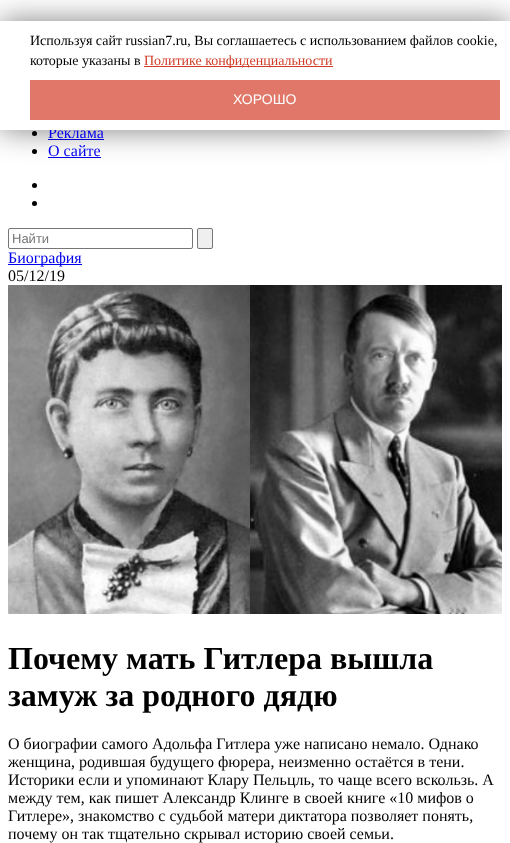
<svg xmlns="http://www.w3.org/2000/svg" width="510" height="843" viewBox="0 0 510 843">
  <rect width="100%" height="100%" fill="#fff"/>
  <circle cx="34.5" cy="133.5" r="2.5" fill="#000"/>
  <path d="M48 139h56v1H48z" fill="#00e"/>
  <circle cx="34.5" cy="151.5" r="2.5" fill="#000"/>
  <path d="M48 157h53v1H48z" fill="#00e"/>
  <path d="M0 21h510v109H0z" fill="#00000080" filter="blur(15px)"/>
  <circle cx="34.5" cy="185.5" r="2.5" fill="#000"/>
  <circle cx="34.5" cy="203.5" r="2.5" fill="#000"/>
  <rect x="8.5" y="228.5" width="184" height="20" rx="1.5" fill="none" stroke="#767676"/>
  <rect x="197.5" y="228.5" width="15" height="20" rx="1.5" fill="#efefef" stroke="#767676"/>
  <path d="M8 264h74v1H8z" fill="#00e"/>
  <image x="8" y="285" width="494" height="329" href="img/1.png"/>
  <text x="48" y="138" font-family="Liberation Serif" font-size="16" fill="#00e">Реклама</text>
  <path d="M0 21h510v109H0z" fill="#fff"/>
  <path d="M30 80h470v40H30z" fill="#e07768"/>
  <text x="233" y="104" font-family="Liberation Sans" font-size="14" fill="#fff">ХОРОШО</text>
  <path d="M144 66h189v1H144z" fill="#d23c27"/>
  <text x="144" y="65" font-family="Liberation Serif" font-size="14" fill="#d23c27">Политике конфиденциальности</text>
  <g font-family="Liberation Serif" font-size="14" fill="#000">
    <text x="30" y="65">которые указаны в</text>
    <text x="30" y="45">Используя сайт russian7.ru, Вы соглашаетесь с использованием файлов cookie,</text>
  </g>
  <text x="48" y="156" font-family="Liberation Serif" font-size="16" fill="#00e">О сайте</text>
  <text x="12" y="243" font-family="Liberation Sans" font-size="13" fill="#757575">Найти</text>
  <text x="8" y="263" font-family="Liberation Serif" font-size="16" fill="#00e">Биография</text>
  <text x="8" y="281" font-family="Liberation Serif" font-size="16" fill="#000">05/12/19</text>
  <g font-family="Liberation Serif" font-size="32" font-weight="bold" fill="#000">
    <text x="8" y="669">Почему мать Гитлера вышла</text>
    <text x="8" y="706">замуж за родного дядю</text>
  </g>
  <g font-family="Liberation Serif" font-size="16" fill="#000">
    <text x="8" y="749">О биографии самого Адольфа Гитлера уже написано немало. Однако</text>
    <text x="8" y="767">женщина, родившая будущего фюрера, неизменно остаётся в тени.</text>
    <text x="8" y="785">Историки если и упоминают Клару Пельцль, то чаще всего вскользь. А</text>
    <text x="8" y="803">между тем, как пишет Александр Клинге в своей книге «10 мифов о</text>
    <text x="8" y="821">Гитлере», знакомство с судьбой матери диктатора позволяет понять,</text>
    <text x="8" y="839">почему он так тщательно скрывал историю своей семьи.</text>
  </g>
</svg>
